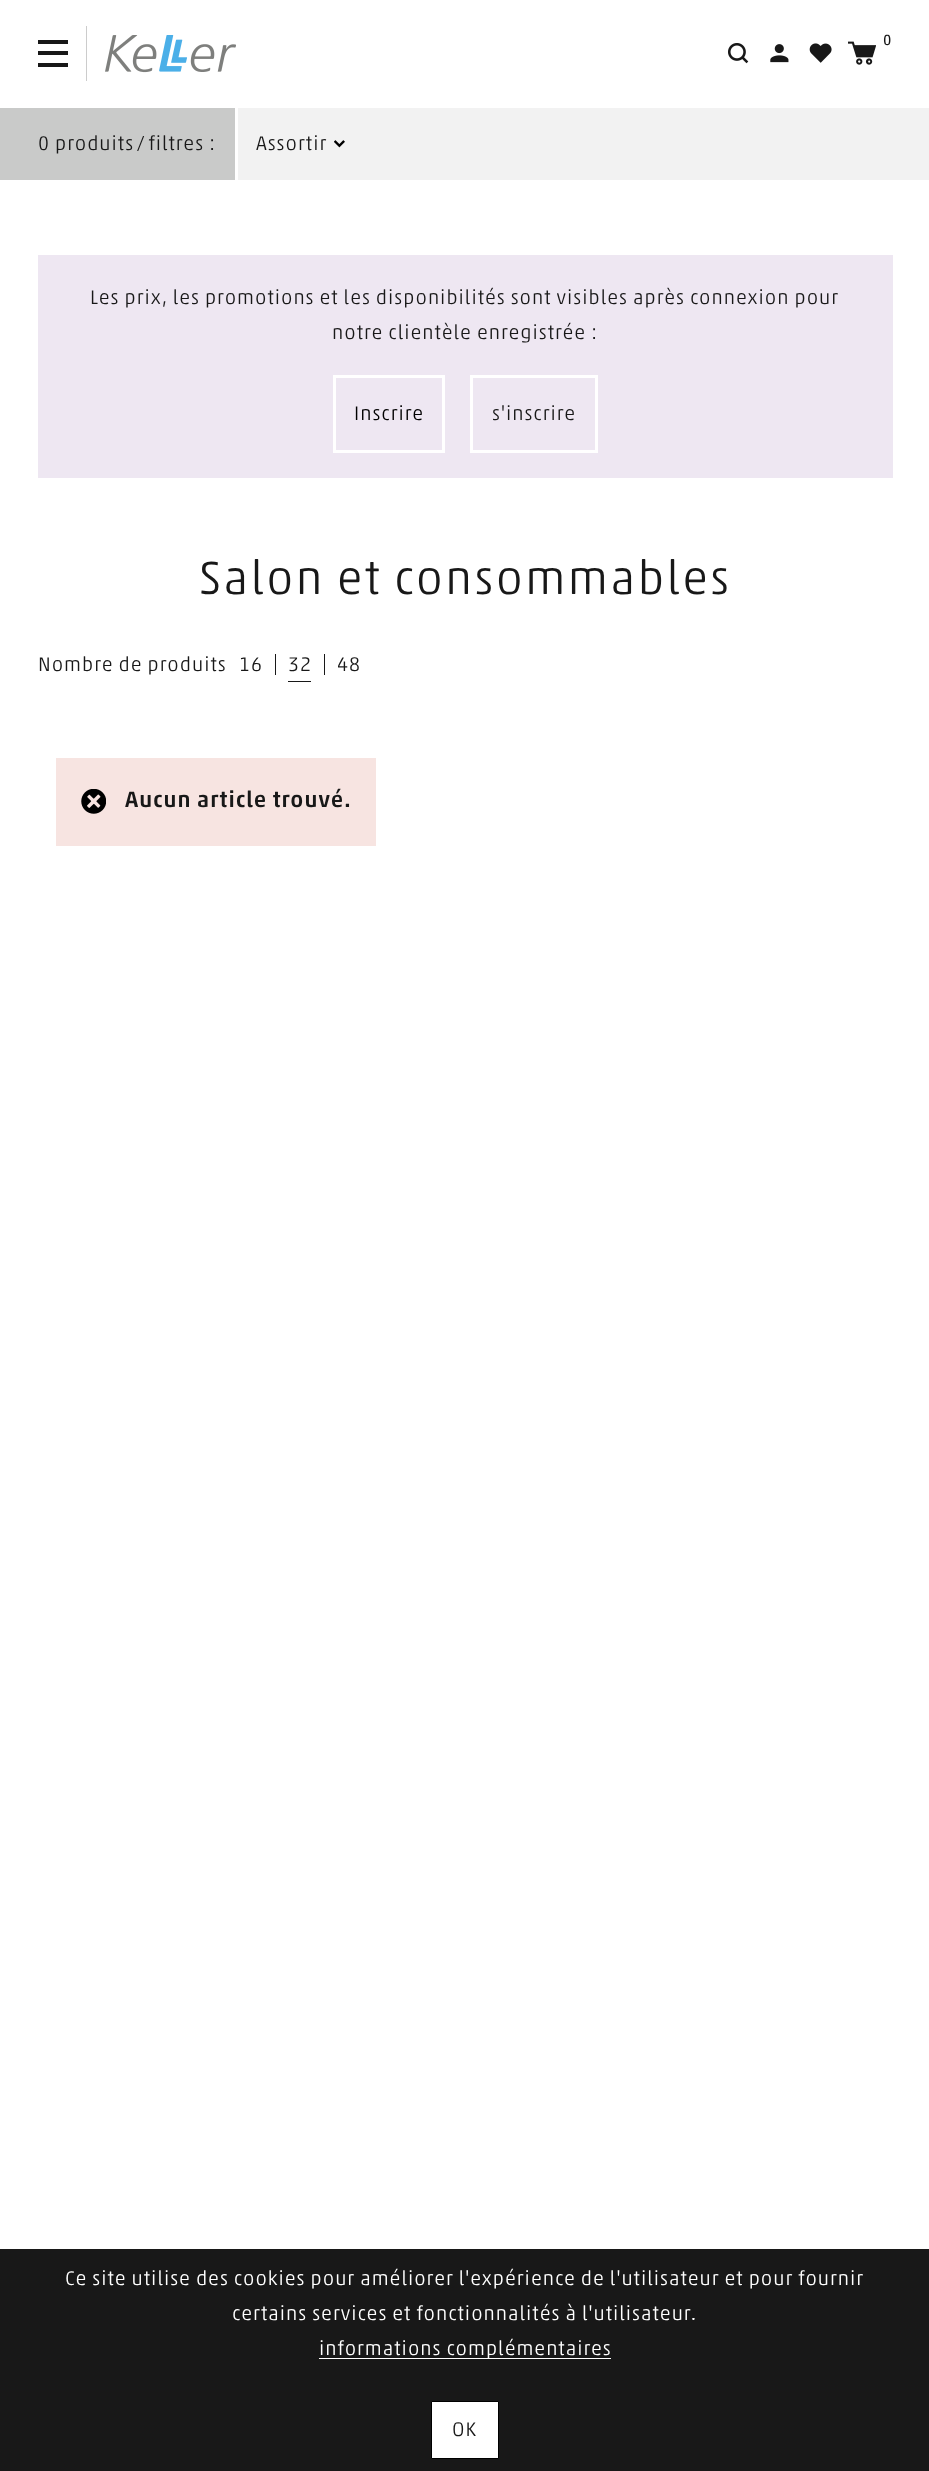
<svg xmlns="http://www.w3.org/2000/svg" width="929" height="2471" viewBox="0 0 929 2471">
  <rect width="100%" height="100%" fill="#fff"/>
  <path d="M38 40h30v4H38z" fill="#181818"/>
  <path d="M38 51h30v4H38z" fill="#181818"/>
  <path d="M38 63h30v4H38z" fill="#181818"/>
  <path d="M86 26h1v55H86z" fill="#ccc"/>
  <image x="105" y="35" width="131" height="38" href="img/1.png"/>
  <image x="848" y="41" width="28" height="24" href="img/2.png"/>
  <image x="728" y="43" width="21" height="21" href="img/3.png"/>
  <image x="770" y="44" width="19" height="19" href="img/4.png"/>
  <image x="809" y="43" width="23" height="20" href="img/5.png"/>
  <path d="M238 108h691v72H238z" fill="#f2f2f2"/>
  <path d="M0 108h235v72H0z" fill="#c9cac9"/>
  <image x="334" y="140" width="11" height="8" href="img/6.png"/>
  <path d="M38 255h855v223H38z" fill="#eee7f2"/>
  <path d="M334.5 376.5h109v75H334.5z" fill="none" stroke="#fff" stroke-width="3"/>
  <path d="M471.5 376.5h125v75H471.5z" fill="none" stroke="#fff" stroke-width="3"/>
  <path d="M275 654h1v21H275z" fill="#181818"/>
  <path d="M288 681h23v1H288z" fill="#181818"/>
  <path d="M324 654h1v21H324z" fill="#181818"/>
  <path d="M56 758h320v88H56z" fill="#f7e4e1"/>
  <image x="81" y="789" width="25" height="25" href="img/7.png"/>
  <path d="M0 2249h929v222H0z" fill="#181818"/>
  <path d="M319 2358h292v1H319z" fill="#fff"/>
  <path d="M431.5 2401.5h67v57H431.5z" fill="#fff" stroke="#000"/>
  <text x="883" y="45" font-family="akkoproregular" font-size="15" letter-spacing="1" fill="#181818">0</text>
  <g font-family="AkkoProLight" font-size="20" letter-spacing="1" fill="#181818">
    <text x="38" y="150">0 produits ∕ filtres :</text>
    <text x="256" y="150">Assortir</text>
    <text x="90" y="304">Les prix, les promotions et les disponibilités sont visibles après connexion pour</text>
    <text x="332" y="339">notre clientèle enregistrée :</text>
  </g>
  <text x="354" y="420" font-family="AkkoProLight" font-size="20" letter-spacing="1" fill="#000">Inscrire</text>
  <text x="492" y="420" font-family="AkkoProLight" font-size="20" letter-spacing="1" fill="#181818">s'inscrire</text>
  <text x="199" y="594" font-family="AkkoProLight" font-size="47.5" letter-spacing="2.4" fill="#181818">Salon et consommables</text>
  <g font-family="AkkoProLight" font-size="20" letter-spacing="1" fill="#181818">
    <text x="38" y="671">Nombre de produits</text>
    <text x="239" y="671">16</text>
    <text x="288" y="671">32</text>
    <text x="337" y="671">48</text>
  </g>
  <text x="125" y="807" font-family="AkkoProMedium" font-size="22.5" letter-spacing="1" fill="#181818">Aucun article trouvé.</text>
  <g font-family="AkkoProLight" font-size="20" letter-spacing="1" fill="#fff">
    <text x="65" y="2285">Ce site utilise des cookies pour améliorer l'expérience de l'utilisateur et pour fournir</text>
    <text x="232" y="2320">certains services et fonctionnalités à l'utilisateur.</text>
    <text x="319" y="2355">informations complémentaires</text>
  </g>
  <text x="452" y="2436" font-family="AkkoProLight" font-size="20" letter-spacing="1" fill="#181818">OK</text>
</svg>
